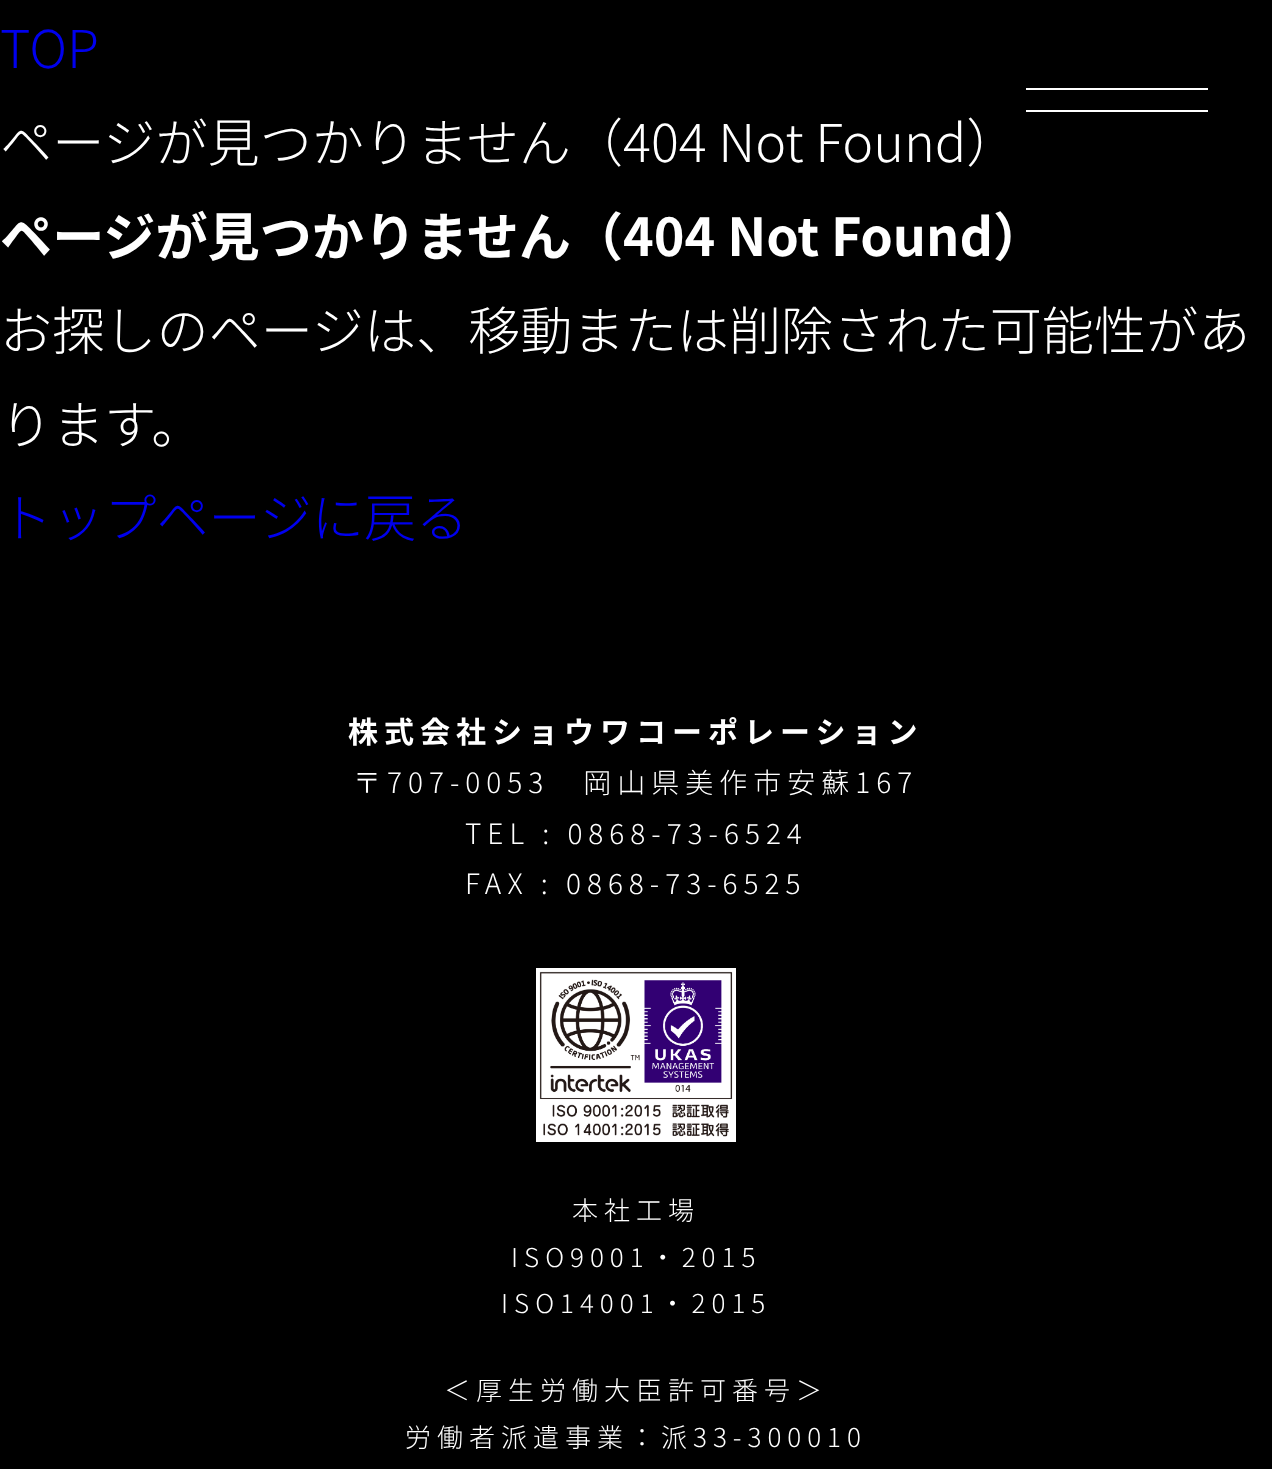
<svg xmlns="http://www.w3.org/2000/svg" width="1272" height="1469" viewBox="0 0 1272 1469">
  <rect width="100%" height="100%" fill="#000"/>
  <path d="M1026 88h182v2H1026z" fill="#fff"/>
  <path d="M1026 110h182v2H1026z" fill="#fff"/>
  <image x="536" y="968" width="200" height="174" href="img/1.png"/>
  <text x="0" y="68" font-family="Noto Sans JP" font-size="52.15" font-weight="300" fill="#00e">TOP</text>
  <text x="0" y="162" font-family="Noto Sans JP" font-size="52.15" font-weight="300" fill="#fff">ページが見つかりません（404 Not Found）</text>
  <text x="0" y="256" font-family="Noto Sans JP" font-size="52.15" font-weight="bold" fill="#fff">ページが見つかりません（404 Not Found）</text>
  <g font-family="Noto Sans JP" font-size="52.15" font-weight="300" fill="#fff">
    <text x="0" y="350">お探しのページは、移動または削除された可能性があ</text>
    <text x="0" y="444">ります。</text>
  </g>
  <text x="0" y="537" font-family="Noto Sans JP" font-size="52.15" font-weight="300" fill="#00e">トップページに戻る</text>
  <text x="348" y="743" font-family="Noto Sans JP" font-size="30" font-weight="bold" letter-spacing="6" fill="#fff">株式会社ショウワコーポレーション</text>
  <g font-family="Noto Sans JP" font-size="28" font-weight="300" letter-spacing="6" fill="#fff">
    <text x="353" y="793">〒707-0053　岡山県美作市安蘇167</text>
    <text x="465" y="844">TEL : 0868-73-6524</text>
    <text x="465" y="894">FAX : 0868-73-6525</text>
  </g>
  <g font-family="Noto Sans JP" font-size="26" font-weight="300" letter-spacing="6" fill="#fff">
    <text x="572" y="1220">本社工場</text>
    <text x="511" y="1267">ISO9001・2015</text>
    <text x="501" y="1313">ISO14001・2015</text>
    <text x="444" y="1400">＜厚生労働大臣許可番号＞</text>
    <text x="405" y="1447">労働者派遣事業：派33-300010</text>
  </g>
</svg>
